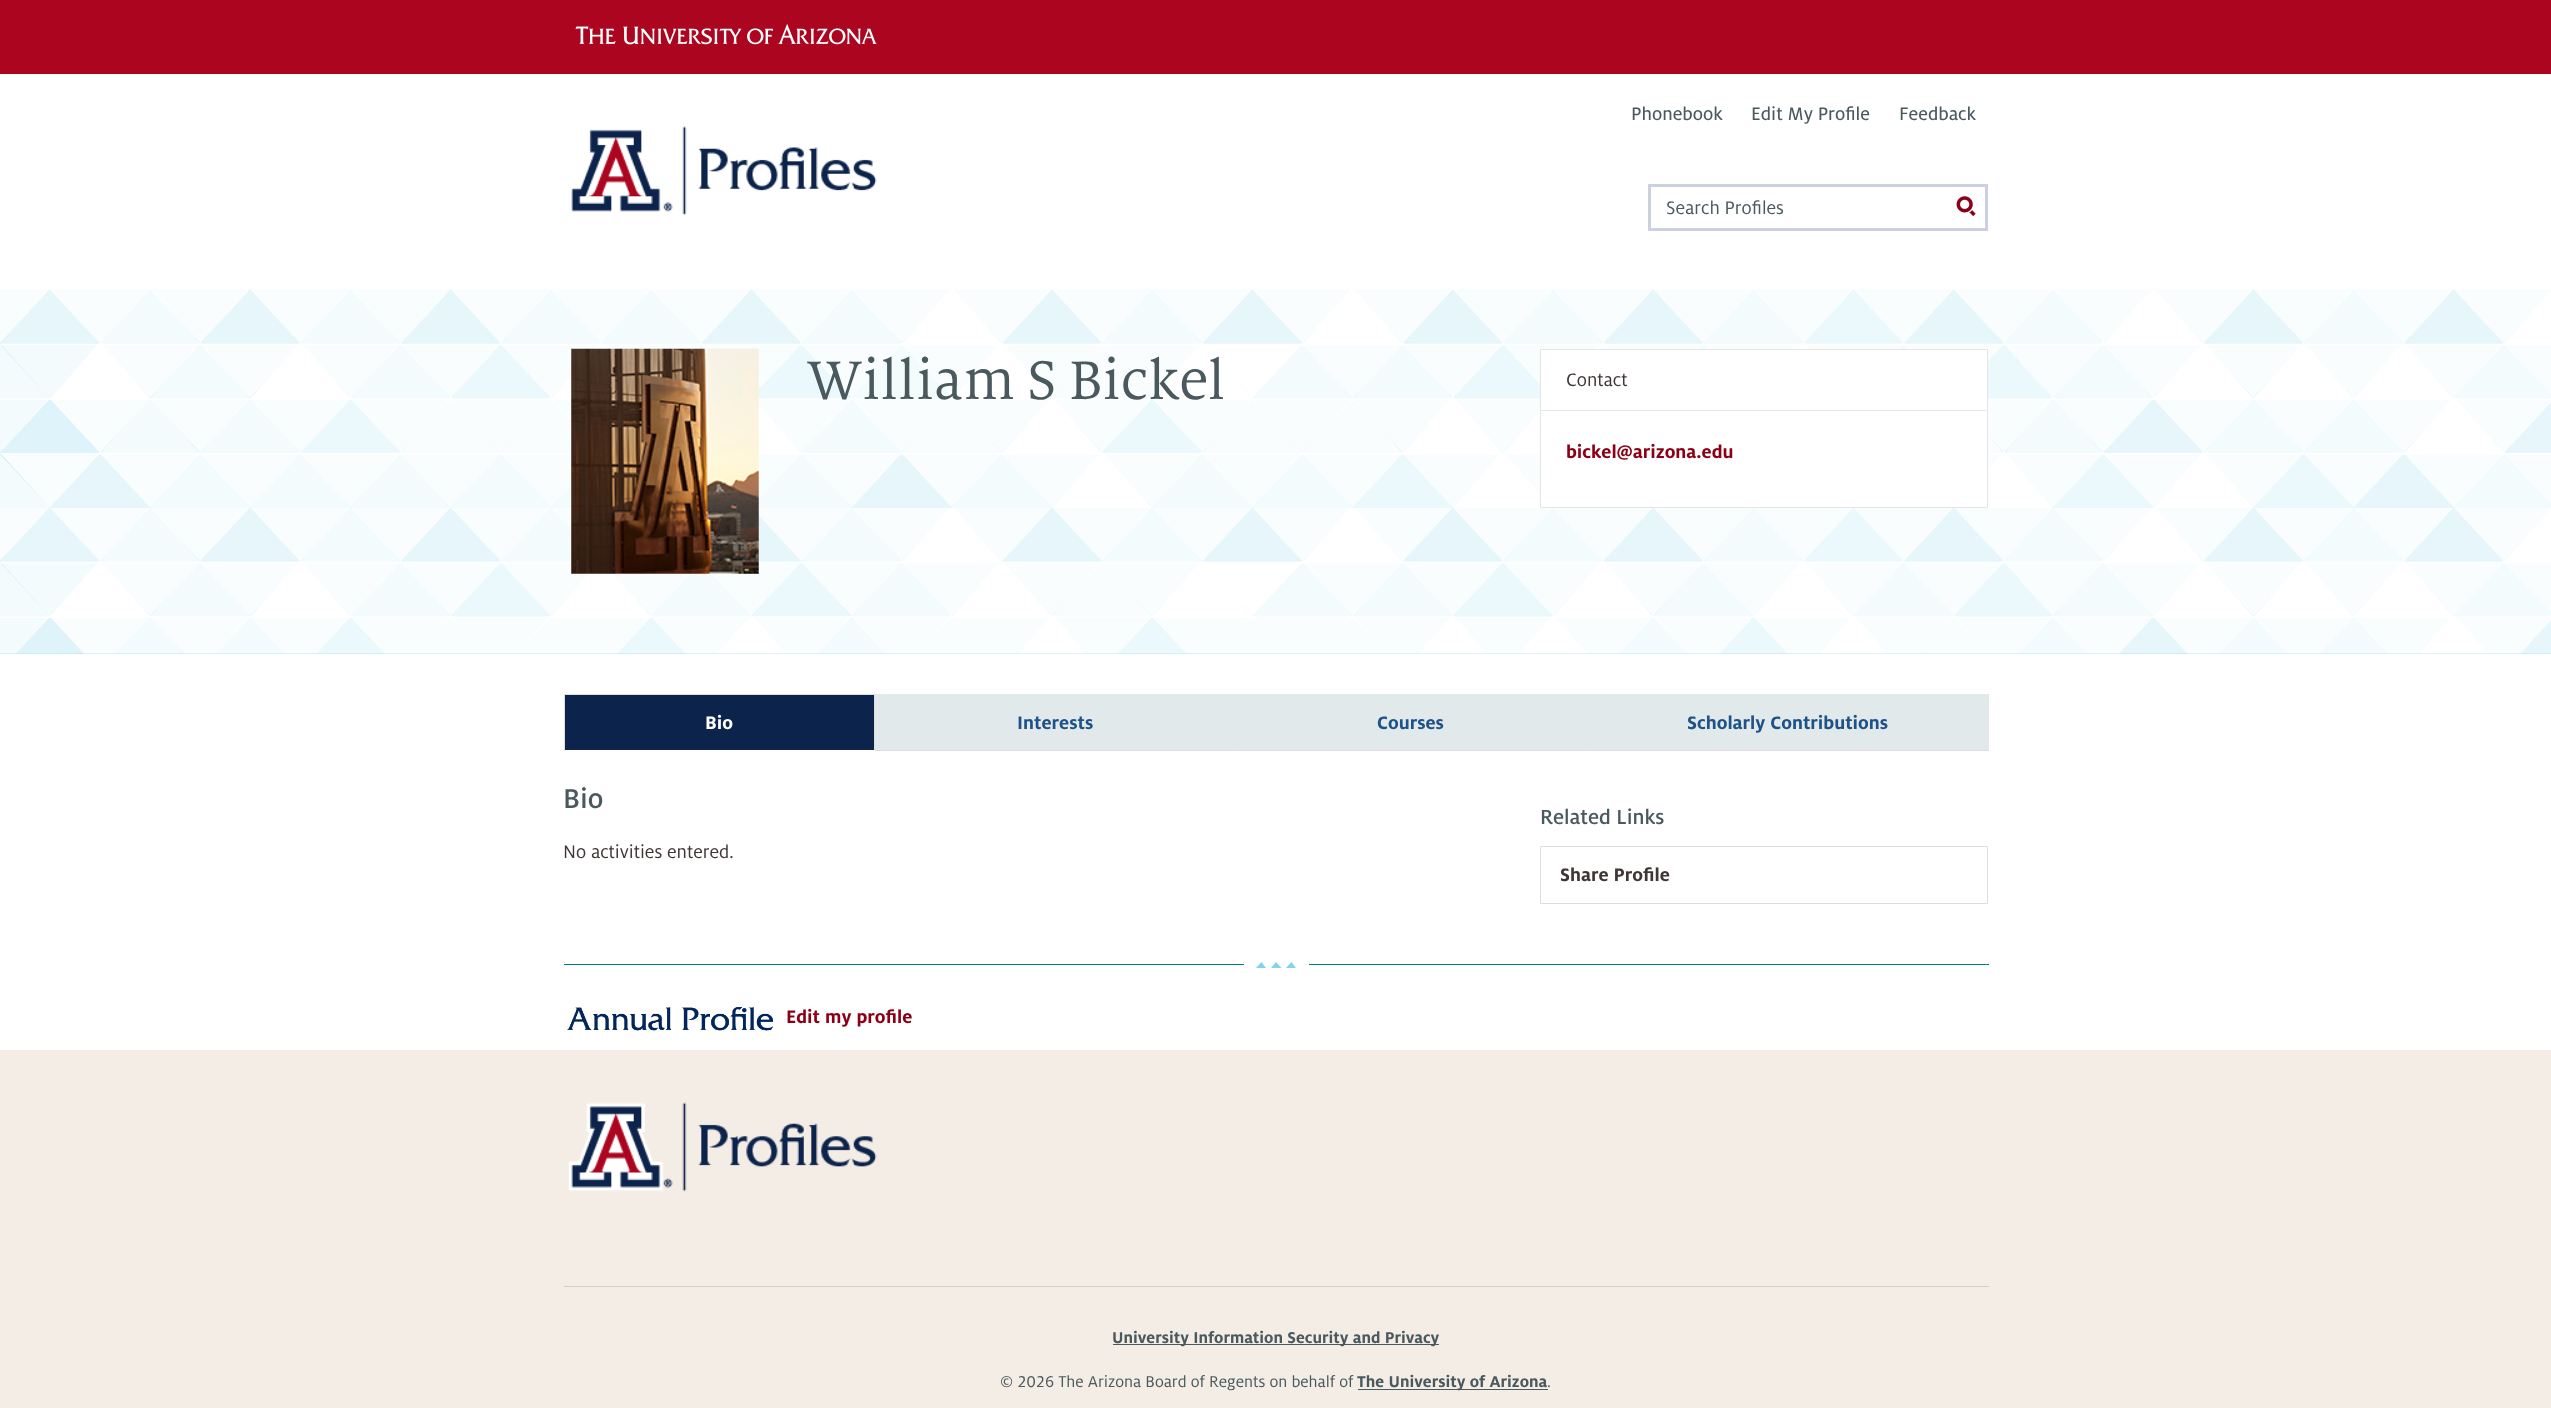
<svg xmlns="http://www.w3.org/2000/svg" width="2551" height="1408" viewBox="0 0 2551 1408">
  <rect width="100%" height="100%" fill="#fff"/>
  <path d="M0 0h2551v74H0z" fill="#ab0520"/>
  <image x="575" y="24" width="302" height="21" href="img/1.png"/>
  <image x="571" y="126" width="306" height="90" href="img/2.png"/>
  <path d="M1649.5 185.5h337v44H1649.5z" fill="none" stroke="#cbd1e0" stroke-width="3"/>
  <image x="1956" y="196" width="20" height="20" href="img/3.png"/>
  <path d="M0 289h2551v365H0z" fill="#81d3eb"/>
  <image x="0" y="289" width="2551" height="365" href="img/4.png"/>
  <image x="571" y="348" width="188" height="226" href="img/5.png"/>
  <path d="M1540.5 349.5h447v158H1540.5z" fill="#fff" stroke="#e5e5e5"/>
  <path d="M1541 410h445v1H1541z" fill="#e5e5e5"/>
  <path d="M565 695h309v55H565z" fill="#0c234b"/>
  <path d="M564 694h311v1H564z" fill="#ddd"/>
  <path d="M874 694h1v57H874z" fill="#ddd"/>
  <path d="M874 750h1v1H874z" fill="#fff"/>
  <path d="M564 694h1v57H564z" fill="#ddd"/>
  <path d="M876 694h359v56H876z" fill="#e2e9eb"/>
  <path d="M875 750h1114v1H875z" fill="#ddd"/>
  <path d="M875 694h1v57H875z" fill="#e2e9eb"/>
  <path d="M1236 694h350v56H1236z" fill="#e2e9eb"/>
  <path d="M1235 694h1v57H1235z" fill="#e2e9eb"/>
  <path d="M1587 694h402v56H1587z" fill="#e2e9eb"/>
  <path d="M1586 694h1v57H1586z" fill="#e2e9eb"/>
  <path d="M1540.5 846.5h447v57H1540.5z" fill="none" stroke="#ddd"/>
  <path d="M1266 968H1256L1261.5 962ZM1296 968H1286L1291.5 962ZM1281.5 968H1271L1276 962Z" fill="#82d3eb"/>
  <path d="M564 964h680v1H564z" fill="#007d84"/>
  <path d="M1309 964h680v1H1309z" fill="#007d84"/>
  <image x="567" y="1007" width="206" height="24" href="img/6.png"/>
  <path d="M0 1050h2551v358H0z" fill="#f4ede5"/>
  <image x="568" y="1102" width="309" height="90" href="img/7.png"/>
  <path d="M564 1286h1425v1H564z" fill="#d4cec7"/>
  <path d="M1113 1344h326v1H1113z" fill="#49595e"/>
  <path d="M1358 1389h190v1H1358z" fill="#49595e"/>
  <g font-family="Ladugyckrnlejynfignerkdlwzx" font-size="20" fill="#49595e">
    <text x="1631" y="120">Phonebook</text>
    <text x="1751" y="120">Edit My Profile</text>
    <text x="1899" y="120">Feedback</text>
  </g>
  <text x="1666" y="214" font-family="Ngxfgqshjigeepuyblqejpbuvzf" font-size="20" fill="#49595e">Search Profiles</text>
  <text x="807" y="399" font-family="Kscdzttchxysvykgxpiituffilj" font-size="60" fill="#49595e">William S Bickel</text>
  <text x="1566" y="386" font-family="Ngxfgqshjigeepuyblqejpbuvzf" font-size="20" fill="#403635">Contact</text>
  <text x="1566" y="458" font-family="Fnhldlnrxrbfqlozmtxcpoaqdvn" font-size="20" font-weight="bold" fill="#8b0015">bickel@arizona.edu</text>
  <text x="705" y="729" font-family="Fnhldlnrxrbfqlozmtxcpoaqdvn" font-size="20" font-weight="bold" fill="#fff">Bio</text>
  <g font-family="Fnhldlnrxrbfqlozmtxcpoaqdvn" font-size="20" font-weight="bold" fill="#1e5288">
    <text x="1017" y="729">Interests</text>
    <text x="1377" y="729">Courses</text>
    <text x="1687" y="729">Scholarly Contributions</text>
  </g>
  <text x="563" y="808" font-family="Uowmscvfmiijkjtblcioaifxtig" font-size="30" font-weight="500" fill="#49595e">Bio</text>
  <text x="563" y="858" font-family="Ngxfgqshjigeepuyblqejpbuvzf" font-size="20" fill="#403635">No activities entered.</text>
  <text x="1540" y="824" font-family="Uowmscvfmiijkjtblcioaifxtig" font-size="22.5" font-weight="500" fill="#49595e">Related Links</text>
  <text x="1560" y="881" font-family="Fnhldlnrxrbfqlozmtxcpoaqdvn" font-size="20" font-weight="bold" fill="#403635">Share Profile</text>
  <text x="786" y="1023" font-family="Fnhldlnrxrbfqlozmtxcpoaqdvn" font-size="20" font-weight="bold" fill="#8b0015">Edit my profile</text>
  <text x="1112" y="1343" font-family="Fnhldlnrxrbfqlozmtxcpoaqdvn" font-size="17.4" font-weight="bold" fill="#49595e">University Information Security and Privacy</text>
  <text x="1000" y="1387" font-family="Ngxfgqshjigeepuyblqejpbuvzf" font-size="17.4" fill="#49595e">© 2026 The Arizona Board of Regents on behalf of</text>
  <text x="1357" y="1387" font-family="Fnhldlnrxrbfqlozmtxcpoaqdvn" font-size="17.4" font-weight="bold" fill="#49595e">The University of Arizona</text>
  <text x="1547" y="1387" font-family="Ngxfgqshjigeepuyblqejpbuvzf" font-size="17.4" fill="#49595e">.</text>
</svg>
